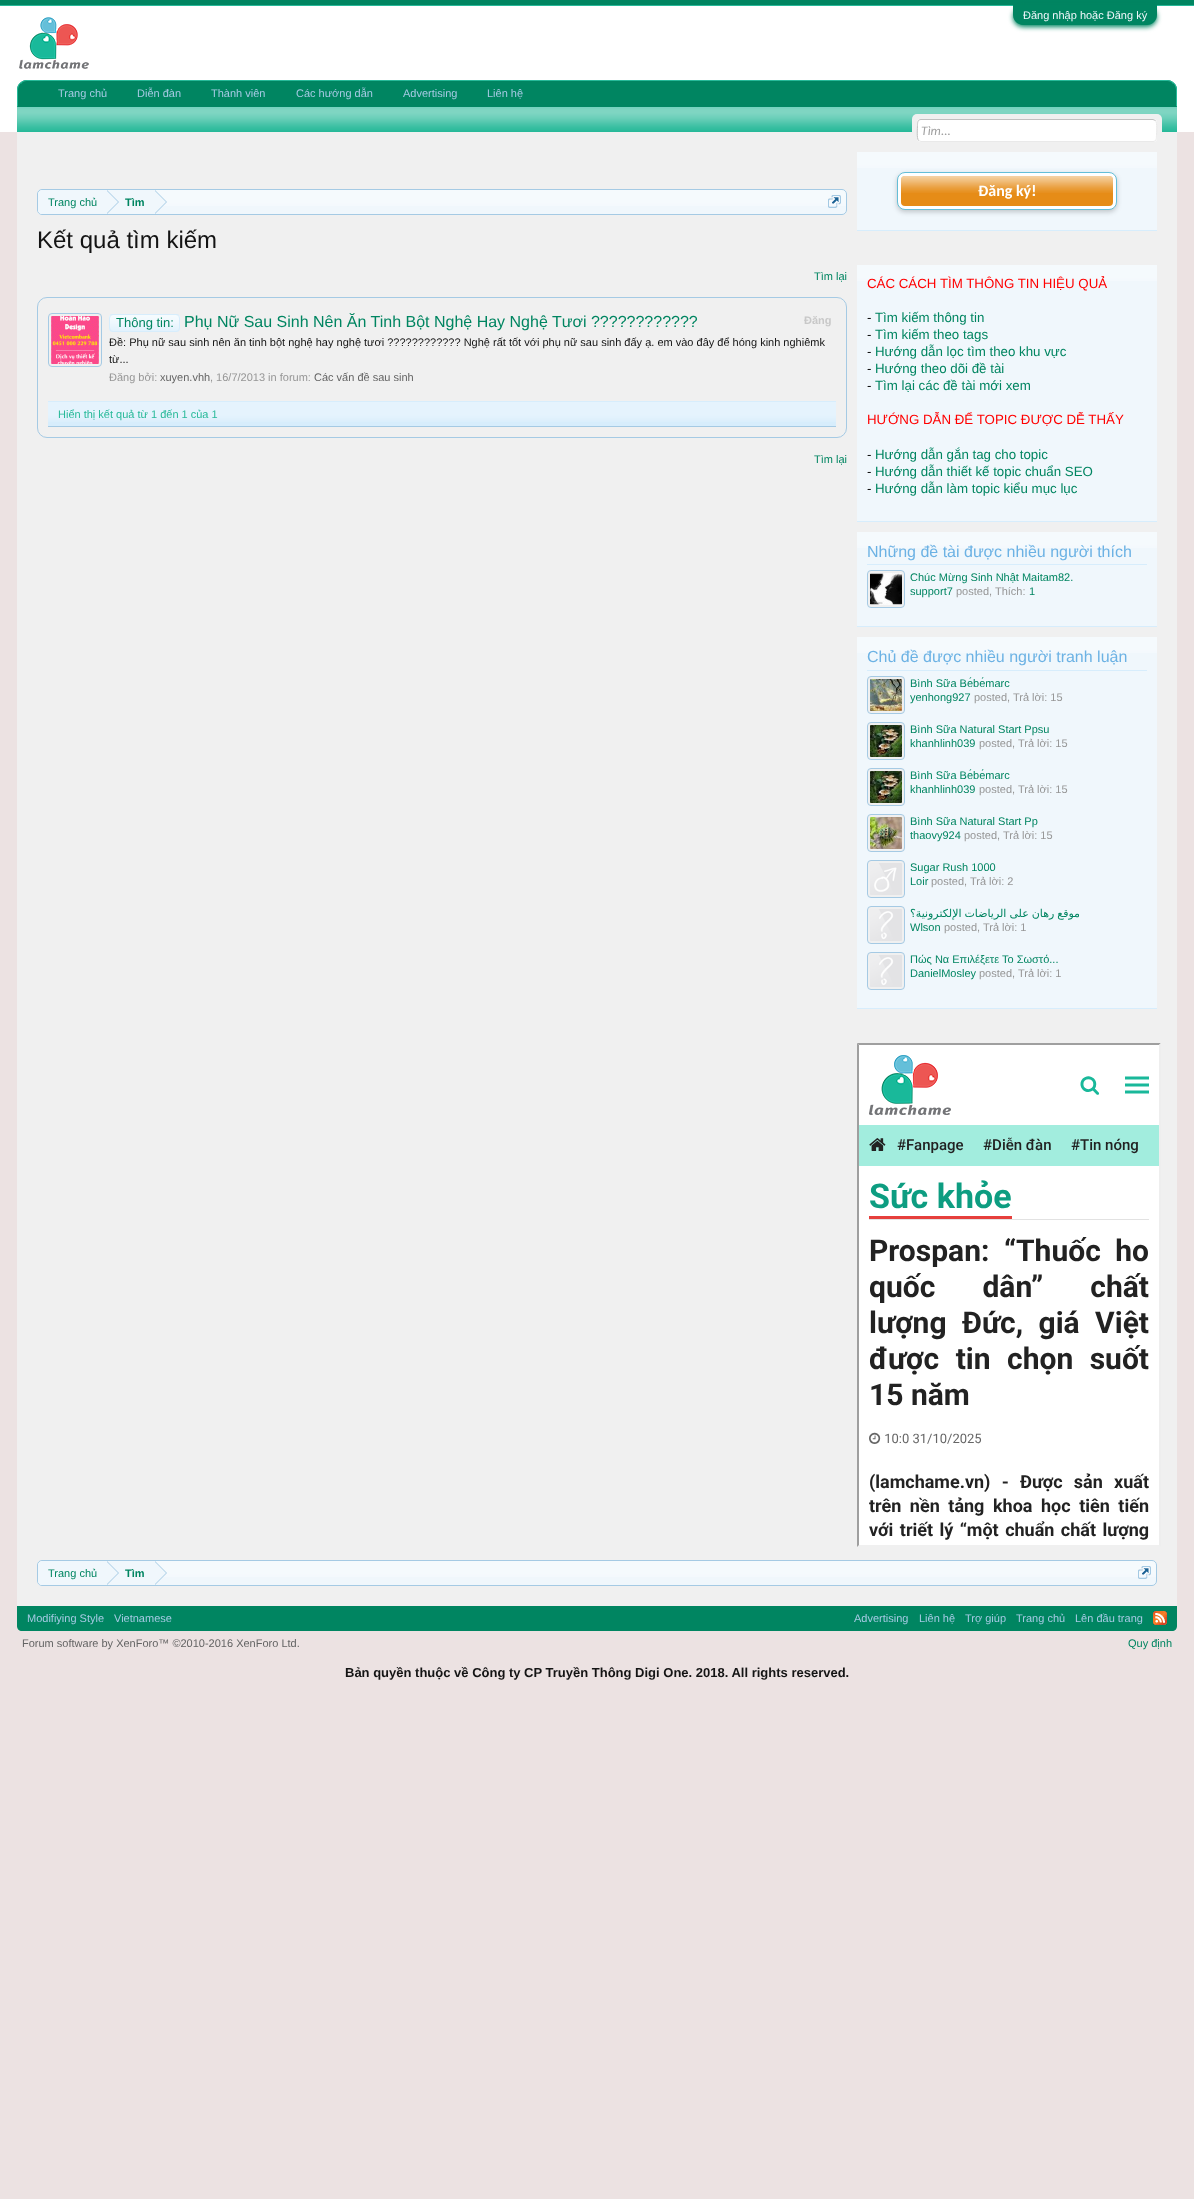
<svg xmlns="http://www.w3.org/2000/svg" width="1194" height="2199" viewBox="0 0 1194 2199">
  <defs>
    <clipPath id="clip1"><rect x="38" y="190" width="808" height="24" rx="4"/></clipPath>
    <clipPath id="clip2"><rect x="38" y="1561" width="1118" height="24" rx="4"/></clipPath>
  </defs>
  <rect width="100%" height="100%" fill="#ece2e2"/>
  <path d="M0 0h1194v5H0z" fill="#008561"/>
  <path d="M0 5h1194v1H0z" fill="#27b999"/>
  <path d="M0 6h1194v126H0z" fill="#fff"/>
  <rect x="1013" y="7" width="144" height="20" rx="10" fill="#008561" filter="blur(2.5px)"/>
  <path d="M1013 5H1157V15C1157 20.5 1152.5 25 1147 25H1023C1017.5 25 1013 20.5 1013 15Z" fill="#008561"/>
  <image x="19" y="17" width="70" height="52" href="img/1.png"/>
  <path d="M27 80H1167C1172.5 80 1177 84.5 1177 90V107H17V90C17 84.5 21.5 80 27 80Z" fill="#008561"/>
  <path d="M27 80C24 80 22 81 20 83L21 84C22 82 24 81 27 81H1167C1170 81 1172 82 1173 84L1174 83C1172 81 1170 80 1167 80Z" fill="#27b999"/>
  <path d="M1177 107V90C1177 87 1176 84.5 1174 83L1173.5 83.5C1175 85 1176 87.5 1176 90V106Z" fill="#27b999"/>
  <path d="M1177 107L1176 106H18L17 107Z" fill="#008561"/>
  <path d="M17 107L18 106V90C18 87.5 19 85 20.5 83.5L20 83C18 84.5 17 87 17 90Z" fill="#27b999"/>
  <path d="M17 107h1160v25H17z" fill="#27b999"/>
  <image x="17" y="107" width="1160" height="24" href="img/2.png"/>
  <path d="M17 132h1160v1474H17z" fill="#f0f0f0"/>
  <rect x="912" y="114" width="250" height="28" rx="5" fill="#f0f0f0"/>
  <rect x="917" y="119" width="240" height="23" rx="4" fill="#fff"/>
  <path d="M1155.5 120.5C1157.5 123 1156.5 132.5 1156.5 135.5C1156.5 138 1156.5 141.5 1153 141.5H921L918.5 140.5" fill="none" stroke="#e9e9e9"/>
  <path d="M918.5 140.5C916.5 138 917.5 128.5 917.5 125.5C917.5 123 917.5 119.5 921 119.5H1153L1155.5 120.5" fill="none" stroke="#c0c0c0"/>
  <rect x="37" y="189" width="810" height="26" rx="5" fill="#f0f7fc"/>
  <image x="37" y="190" width="810" height="16" href="img/3.png"/>
  <rect x="37.5" y="189.5" width="809" height="25" rx="4.5" fill="none" stroke="#a5cae4"/>
  <g clip-path="url(#clip1)">
    <path d="M43 190H107V215H43C40 215 38 213 38 210V195C38 192 40 190 43 190Z" fill="#f0f7fc"/>
  </g>
  <path d="M107 190h48v16H107z" fill="#f0f7fc"/>
  <path d="M107 214V190L119 202Z" fill="#a5cae4"/>
  <path d="M106 214V190L118 202Z" fill="#f0f7fc"/>
  <path d="M155 214V190L167 202Z" fill="#a5cae4"/>
  <path d="M154 214V190L166 202Z" fill="#f0f7fc"/>
  <image x="828" y="195" width="13" height="13" href="img/4.png"/>
  <rect x="37.5" y="297.5" width="809" height="140" rx="9.5" fill="none" stroke="#a5cae4"/>
  <path d="M48 401h788v25H48z" fill="#d7edfc"/>
  <rect x="48.5" y="313.5" width="53" height="53" rx="3.5" fill="none" stroke="#a5cae4"/>
  <image x="51" y="316" width="48" height="48" href="img/5.png"/>
  <rect x="109" y="314" width="71" height="18" rx="4" fill="#d7edfc"/>
  <image x="109" y="315" width="71" height="17" href="img/6.png"/>
  <rect x="109.5" y="314.5" width="70" height="17" rx="3.5" fill="none" stroke="#d7edfc"/>
  <image x="48" y="402" width="788" height="20" href="img/7.png"/>
  <path d="M48 426h788v1H48z" fill="#a5cae4"/>
  <path d="M857 152h300v78H857z" fill="#f0f7fc"/>
  <image x="857" y="152" width="300" height="16" href="img/8.png"/>
  <path d="M857 230h300v1H857z" fill="#d7edfc"/>
  <rect x="897" y="174" width="220" height="38" rx="8" fill="#00000033" filter="blur(2.5px)"/>
  <rect x="897.5" y="172.5" width="219" height="37" rx="7.5" fill="#fff" stroke="#64bed7"/>
  <rect x="901" y="176" width="212" height="30" rx="4" fill="#e68c17"/>
  <image x="901" y="176" width="212" height="17" href="img/9.png"/>
  <path d="M857 265h300v256H857z" fill="#f0f7fc"/>
  <image x="857" y="265" width="300" height="16" href="img/8.png"/>
  <path d="M857 521h300v1H857z" fill="#d7edfc"/>
  <path d="M857 532h300v94H857z" fill="#f0f7fc"/>
  <image x="857" y="532" width="300" height="16" href="img/8.png"/>
  <path d="M857 626h300v1H857z" fill="#d7edfc"/>
  <path d="M867 564h280v1H867z" fill="#d7edfc"/>
  <rect x="867.5" y="570.5" width="37" height="37" rx="3.5" fill="#f0f0f0" stroke="#a5cae4"/>
  <image x="870" y="573" width="32" height="32" href="img/10.png"/>
  <path d="M857 637h300v371H857z" fill="#f0f7fc"/>
  <image x="857" y="637" width="300" height="16" href="img/8.png"/>
  <path d="M857 1008h300v1H857z" fill="#d7edfc"/>
  <path d="M867 670h280v1H867z" fill="#d7edfc"/>
  <rect x="867.5" y="676.5" width="37" height="37" rx="3.5" fill="#f0f0f0" stroke="#a5cae4"/>
  <image x="870" y="679" width="32" height="32" href="img/11.png"/>
  <rect x="867.5" y="722.5" width="37" height="37" rx="3.5" fill="#f0f0f0" stroke="#a5cae4"/>
  <image x="870" y="725" width="32" height="32" href="img/12.png"/>
  <rect x="867.5" y="768.5" width="37" height="37" rx="3.5" fill="#f0f0f0" stroke="#a5cae4"/>
  <image x="870" y="771" width="32" height="32" href="img/12.png"/>
  <rect x="867.5" y="814.5" width="37" height="37" rx="3.5" fill="#f0f0f0" stroke="#a5cae4"/>
  <image x="870" y="817" width="32" height="32" href="img/13.png"/>
  <rect x="867.5" y="860.5" width="37" height="37" rx="3.5" fill="#f0f0f0" stroke="#a5cae4"/>
  <image x="870" y="863" width="32" height="32" href="img/14.png"/>
  <rect x="867.5" y="906.5" width="37" height="37" rx="3.5" fill="#f0f0f0" stroke="#a5cae4"/>
  <image x="870" y="909" width="32" height="32" href="img/15.png"/>
  <rect x="867.5" y="952.5" width="37" height="37" rx="3.5" fill="#f0f0f0" stroke="#a5cae4"/>
  <image x="870" y="955" width="32" height="32" href="img/15.png"/>
  <path d="M857 1043H1161L1159 1045H859Z" fill="#9f9f9f"/>
  <path d="M857 1547V1043L859 1045V1545Z" fill="#9f9f9f"/>
  <image x="859" y="1045" width="300" height="500" href="img/16.png"/>
  <path d="M1161 1043V1547L1159 1545V1045Z" fill="#eee"/>
  <rect x="37" y="1560" width="1120" height="26" rx="5" fill="#f0f7fc"/>
  <image x="37" y="1561" width="1120" height="16" href="img/17.png"/>
  <rect x="37.5" y="1560.5" width="1119" height="25" rx="4.5" fill="none" stroke="#a5cae4"/>
  <g clip-path="url(#clip2)">
    <path d="M43 1561H107V1586H43C40 1586 38 1584 38 1581V1566C38 1563 40 1561 43 1561Z" fill="#f0f7fc"/>
  </g>
  <path d="M107 1561h48v16H107z" fill="#f0f7fc"/>
  <path d="M107 1585V1561L119 1573Z" fill="#a5cae4"/>
  <path d="M106 1585V1561L118 1573Z" fill="#f0f7fc"/>
  <path d="M155 1585V1561L167 1573Z" fill="#a5cae4"/>
  <path d="M154 1585V1561L166 1573Z" fill="#f0f7fc"/>
  <image x="1138" y="1566" width="13" height="13" href="img/4.png"/>
  <path d="M17 1606H1177V1626C1177 1629 1175 1631 1172 1631H22C19 1631 17 1629 17 1626Z" fill="#008561"/>
  <image x="1153" y="1611" width="14" height="14" href="img/18.png"/>
  <text x="1023" y="19" font-family="Liberation Sans" font-size="11" fill="#f0f7fc">Đăng nhập hoặc Đăng ký</text>
  <g font-family="Liberation Sans" font-size="11" fill="#a5cae4">
    <text x="58" y="97">Trang chủ</text>
    <text x="137" y="97">Diễn đàn</text>
    <text x="211" y="97">Thành viên</text>
    <text x="296" y="97">Các hướng dẫn</text>
    <text x="403" y="97">Advertising</text>
    <text x="487" y="97">Liên hệ</text>
  </g>
  <text x="921" y="135" font-family="Carlito" font-size="13" font-style="italic" fill="#a0a0a0">Tìm...</text>
  <text x="48" y="206" font-family="Liberation Sans" font-size="11" fill="#008561">Trang chủ</text>
  <text x="125" y="206" font-family="Liberation Sans" font-size="11" font-weight="bold" fill="#008561">Tìm</text>
  <text x="37" y="248" font-family="Liberation Sans" font-size="24" fill="#141414">Kết quả tìm kiếm</text>
  <text x="814" y="280" font-family="Liberation Sans" font-size="11" fill="#008561">Tìm lại</text>
  <text x="116" y="327" font-family="Liberation Sans" font-size="13" fill="#008561">Thông tin:</text>
  <text x="184" y="327" font-family="Liberation Sans" font-size="16" fill="#008561">Phụ Nữ Sau Sinh Nên Ăn Tinh Bột Nghệ Hay Nghệ Tươi ????????????</text>
  <text x="804" y="324" font-family="Liberation Sans" font-size="11" font-weight="bold" fill="#c8c8c8">Đăng</text>
  <g font-family="Liberation Sans" font-size="11" fill="#141414">
    <text x="109" y="346">Ðề: Phụ nữ sau sinh nên ăn tinh bột nghệ hay nghệ tươi ???????????? Nghệ rất tốt với phụ nữ sau sinh đấy ạ. em vào đây để hóng kinh nghiêmk</text>
    <text x="109" y="363">từ...</text>
  </g>
  <text x="109" y="381" font-family="Liberation Sans" font-size="11" fill="#969696">Đăng bởi:</text>
  <text x="160" y="381" font-family="Liberation Sans" font-size="11" fill="#646464">xuyen.vhh</text>
  <text x="210" y="381" font-family="Liberation Sans" font-size="11" fill="#969696">, 16/7/2013 in forum:</text>
  <text x="314" y="381" font-family="Liberation Sans" font-size="11" fill="#646464">Các vấn đề sau sinh</text>
  <text x="58" y="418" font-family="Liberation Sans" font-size="11" fill="#27b999">Hiển thị kết quả từ 1 đến 1 của 1</text>
  <text x="814" y="463" font-family="Liberation Sans" font-size="11" fill="#008561">Tìm lại</text>
  <text x="978" y="196" font-family="Carlito" font-size="16" font-weight="bold" fill="#fff">Đăng ký!</text>
  <text x="867" y="288" font-family="Liberation Sans" font-size="13.3" fill="#f00">CÁC CÁCH TÌM THÔNG TIN HIỆU QUẢ</text>
  <text x="867" y="322" font-family="Liberation Sans" font-size="13.3" fill="#141414">-</text>
  <text x="875" y="322" font-family="Liberation Sans" font-size="13.3" fill="#008561">Tìm kiếm thông tin</text>
  <text x="867" y="339" font-family="Liberation Sans" font-size="13.3" fill="#141414">-</text>
  <text x="875" y="339" font-family="Liberation Sans" font-size="13.3" fill="#008561">Tìm kiếm theo tags</text>
  <text x="867" y="356" font-family="Liberation Sans" font-size="13.3" fill="#141414">-</text>
  <text x="875" y="356" font-family="Liberation Sans" font-size="13.3" fill="#008561">Hướng dẫn lọc tìm theo khu vực</text>
  <text x="867" y="373" font-family="Liberation Sans" font-size="13.3" fill="#141414">-</text>
  <text x="875" y="373" font-family="Liberation Sans" font-size="13.3" fill="#008561">Hướng theo dõi đề tài</text>
  <text x="867" y="390" font-family="Liberation Sans" font-size="13.3" fill="#141414">-</text>
  <text x="875" y="390" font-family="Liberation Sans" font-size="13.3" fill="#008561">Tìm lại các đề tài mới xem</text>
  <text x="867" y="424" font-family="Liberation Sans" font-size="13.3" fill="#f00">HƯỚNG DẪN ĐỂ TOPIC ĐƯỢC DỄ THẤY</text>
  <text x="867" y="459" font-family="Liberation Sans" font-size="13.3" fill="#141414">-</text>
  <text x="875" y="459" font-family="Liberation Sans" font-size="13.3" fill="#008561">Hướng dẫn gắn tag cho topic</text>
  <text x="867" y="476" font-family="Liberation Sans" font-size="13.3" fill="#141414">-</text>
  <text x="875" y="476" font-family="Liberation Sans" font-size="13.3" fill="#008561">Hướng dẫn thiết kế topic chuẩn SEO</text>
  <text x="867" y="493" font-family="Liberation Sans" font-size="13.3" fill="#141414">-</text>
  <text x="875" y="493" font-family="Liberation Sans" font-size="13.3" fill="#008561">Hướng dẫn làm topic kiểu mục lục</text>
  <text x="867" y="557" font-family="Liberation Sans" font-size="16" fill="#6cb2e4">Những đề tài được nhiều người thích</text>
  <g font-family="Liberation Sans" font-size="11" fill="#008561">
    <text x="910" y="581">Chúc Mừng Sinh Nhật Maitam82.</text>
    <text x="910" y="595">support7</text>
  </g>
  <text x="956" y="595" font-family="Liberation Sans" font-size="11" fill="#969696">posted, Thích:</text>
  <text x="1029" y="595" font-family="Liberation Sans" font-size="11" fill="#008561">1</text>
  <text x="867" y="662" font-family="Liberation Sans" font-size="16" fill="#6cb2e4">Chủ đề được nhiều người tranh luận</text>
  <g font-family="Liberation Sans" font-size="11" fill="#008561">
    <text x="910" y="687">Bình Sữa Bébémarc</text>
    <text x="910" y="701">yenhong927</text>
  </g>
  <text x="974" y="701" font-family="Liberation Sans" font-size="11" fill="#969696">posted, Trả lời: 15</text>
  <g font-family="Liberation Sans" font-size="11" fill="#008561">
    <text x="910" y="733">Bình Sữa Natural Start Ppsu</text>
    <text x="910" y="747">khanhlinh039</text>
  </g>
  <text x="979" y="747" font-family="Liberation Sans" font-size="11" fill="#969696">posted, Trả lời: 15</text>
  <g font-family="Liberation Sans" font-size="11" fill="#008561">
    <text x="910" y="779">Bình Sữa Bébémarc</text>
    <text x="910" y="793">khanhlinh039</text>
  </g>
  <text x="979" y="793" font-family="Liberation Sans" font-size="11" fill="#969696">posted, Trả lời: 15</text>
  <g font-family="Liberation Sans" font-size="11" fill="#008561">
    <text x="910" y="825">Bình Sữa Natural Start Pp</text>
    <text x="910" y="839">thaovy924</text>
  </g>
  <text x="964" y="839" font-family="Liberation Sans" font-size="11" fill="#969696">posted, Trả lời: 15</text>
  <g font-family="Liberation Sans" font-size="11" fill="#008561">
    <text x="910" y="871">Sugar Rush 1000</text>
    <text x="910" y="885">Loir</text>
  </g>
  <text x="931" y="885" font-family="Liberation Sans" font-size="11" fill="#969696">posted, Trả lời: 2</text>
  <text x="1080" y="917" word-spacing="-0.5" font-family="DejaVu Sans" font-size="11" direction="rtl" fill="#008561">موقع رهان على الرياضات الإلكترونية؟</text>
  <text x="910" y="931" font-family="Liberation Sans" font-size="11" fill="#008561">Wlson</text>
  <text x="944" y="931" font-family="Liberation Sans" font-size="11" fill="#969696">posted, Trả lời: 1</text>
  <g font-family="Liberation Sans" font-size="11" fill="#008561">
    <text x="910" y="963">Πώς Να Επιλέξετε Το Σωστό...</text>
    <text x="910" y="977">DanielMosley</text>
  </g>
  <text x="979" y="977" font-family="Liberation Sans" font-size="11" fill="#969696">posted, Trả lời: 1</text>
  <text x="48" y="1577" font-family="Liberation Sans" font-size="11" fill="#008561">Trang chủ</text>
  <text x="125" y="1577" font-family="Liberation Sans" font-size="11" font-weight="bold" fill="#008561">Tìm</text>
  <g font-family="Liberation Sans" font-size="11" fill="#a5cae4">
    <text x="27" y="1622">Modifiying Style</text>
    <text x="114" y="1622">Vietnamese</text>
    <text x="854" y="1622">Advertising</text>
    <text x="919" y="1622">Liên hệ</text>
    <text x="965" y="1622">Trợ giúp</text>
    <text x="1016" y="1622">Trang chủ</text>
    <text x="1075" y="1622">Lên đầu trang</text>
  </g>
  <text x="22" y="1647" font-family="Liberation Sans" font-size="11" fill="#646464">Forum software by XenForo™ ©2010-2016 XenForo Ltd.</text>
  <text x="1128" y="1647" font-family="Liberation Sans" font-size="11" fill="#008561">Quy định</text>
  <text x="345" y="1677" font-family="Liberation Sans" font-size="13" font-weight="bold" fill="#141414">Bản quyền thuộc về Công ty CP Truyền Thông Digi One. 2018. All rights reserved.</text>
</svg>
